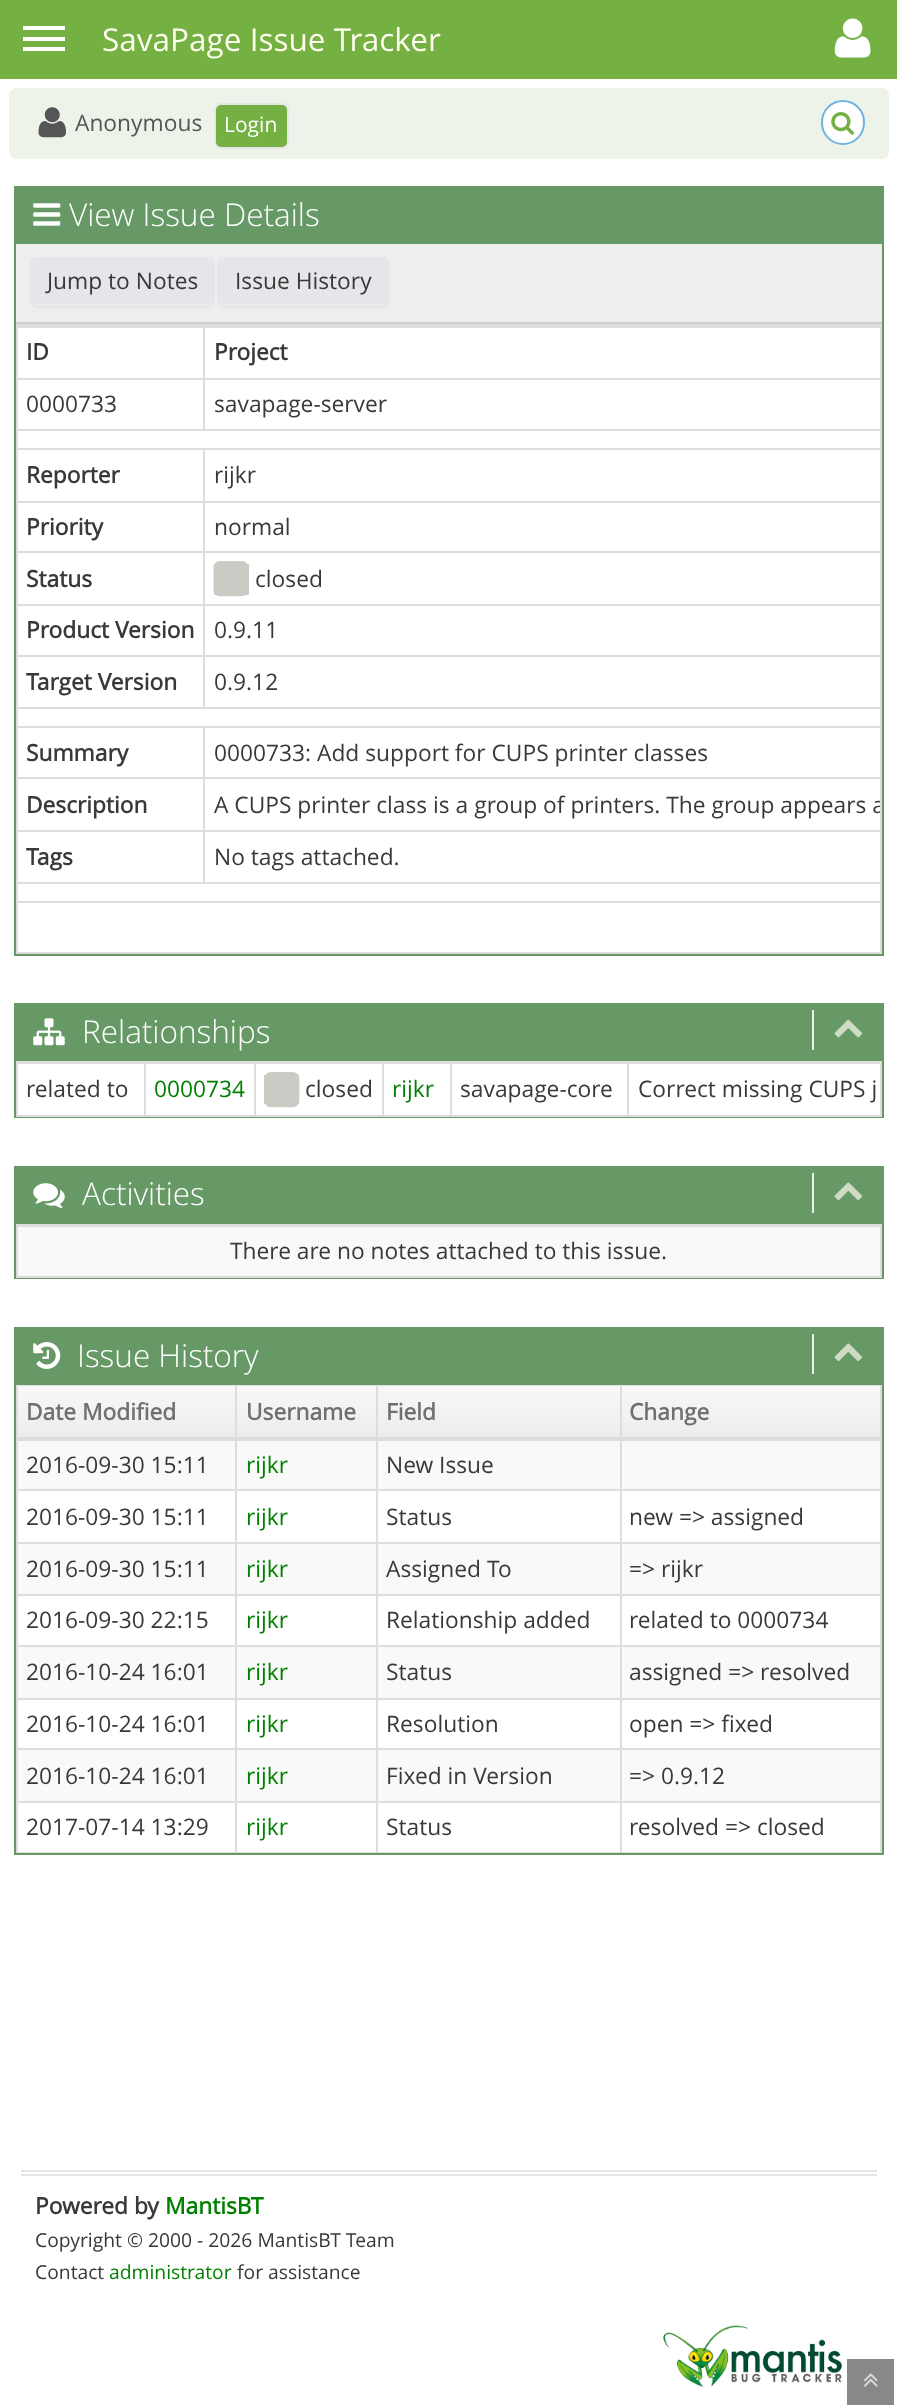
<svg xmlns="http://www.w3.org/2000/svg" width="897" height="2407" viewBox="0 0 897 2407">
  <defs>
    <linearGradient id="g1" gradientUnits="userSpaceOnUse" x1="449" y1="1386" x2="449" y2="1439"><stop offset="0" stop-color="#f8f8f8"/><stop offset="1" stop-color="#ececec"/></linearGradient>
    <clipPath id="clip1"><path d="M18 326h862v626H18z"/></clipPath>
  </defs>
  <rect width="100%" height="100%" fill="#fff"/>
  <path d="M0 0h897v79H0z" fill="#74b042"/>
  <path d="M23 26h42v4H23z" fill="#fff"/>
  <path d="M23 37h42v4H23z" fill="#fff"/>
  <path d="M23 47h42v4H23z" fill="#fff"/>
  <image x="834" y="18" width="37" height="40" href="img/1.png"/>
  <rect x="9" y="88" width="880" height="71" rx="7" fill="#eef3ea"/>
  <image x="38" y="107" width="28" height="31" href="img/2.png"/>
  <rect x="215" y="104" width="73" height="44" rx="6" fill="#74b042" stroke="#e4e6e9" stroke-width="2"/>
  <rect x="822" y="101" width="42" height="43" rx="21" fill="#fff" stroke="#6fb3e0" stroke-width="2"/>
  <image x="831" y="112" width="23" height="23" href="img/3.png"/>
  <path d="M15 187h868v768H15z" fill="none" stroke="#696" stroke-width="2"/>
  <path d="M16 188h866v56H16z" fill="#696"/>
  <image x="33" y="203" width="28" height="23" href="img/4.png"/>
  <path d="M16 244h866v78H16z" fill="#eee"/>
  <path d="M16 322h866v2H16z" fill="#ccc"/>
  <path d="M37 259H208C211 259 214 261 214 264V301C214 303 211 304 208 304H37C34 304 32 303 32 301V264C32 261 34 259 37 259Z" fill="#e4e6e9"/>
  <rect x="31" y="258" width="183" height="49" rx="6" fill="none" stroke="#e4e6e9" stroke-width="2"/>
  <path d="M33 305h179v1H33z" fill="#e4e6e9"/>
  <path d="M224 259H383C386 259 388 261 388 264V301C388 303 386 304 383 304H224C221 304 219 303 219 301V264C219 261 221 259 224 259Z" fill="#e4e6e9"/>
  <rect x="218" y="258" width="171" height="49" rx="6" fill="none" stroke="#e4e6e9" stroke-width="2"/>
  <path d="M221 305h166v1H221z" fill="#e4e6e9"/>
  <path d="M17 325h864v628H17z" fill="none" stroke="#ddd" stroke-width="2"/>
  <path d="M203 326h677v2H203z" fill="#ddd"/>
  <path d="M203 378h677v2H203z" fill="#ddd"/>
  <path d="M18 429h862v2H18z" fill="#ddd"/>
  <path d="M203 378h2v53H203z" fill="#ddd"/>
  <path d="M18 378h187v2H18z" fill="#ddd"/>
  <path d="M203 326h2v54H203z" fill="#ddd"/>
  <path d="M18 326h187v2H18z" fill="#ddd"/>
  <path d="M203 448h677v2H203z" fill="#ddd"/>
  <path d="M203 501h677v2H203z" fill="#ddd"/>
  <path d="M203 551h677v2H203z" fill="#ddd"/>
  <path d="M203 604h677v2H203z" fill="#ddd"/>
  <path d="M203 655h677v2H203z" fill="#ddd"/>
  <path d="M18 707h862v2H18z" fill="#ddd"/>
  <path d="M203 655h2v54H203z" fill="#ddd"/>
  <path d="M18 655h187v2H18z" fill="#ddd"/>
  <path d="M203 604h2v52H203z" fill="#ddd"/>
  <path d="M18 604h187v2H18z" fill="#ddd"/>
  <path d="M203 551h2v55H203z" fill="#ddd"/>
  <path d="M18 551h187v2H18z" fill="#ddd"/>
  <path d="M203 501h2v52H203z" fill="#ddd"/>
  <path d="M18 501h187v2H18z" fill="#ddd"/>
  <path d="M203 448h2v54H203z" fill="#ddd"/>
  <path d="M18 448h187v2H18z" fill="#ddd"/>
  <path d="M214 564h35v31H214z" fill="#c9ccc4"/>
  <image x="213" y="561" width="35" height="36" href="img/5.png"/>
  <path d="M203 726h677v2H203z" fill="#ddd"/>
  <path d="M203 777h677v2H203z" fill="#ddd"/>
  <path d="M203 830h677v2H203z" fill="#ddd"/>
  <path d="M18 882h862v2H18z" fill="#ddd"/>
  <path d="M203 830h2v54H203z" fill="#ddd"/>
  <path d="M18 830h187v2H18z" fill="#ddd"/>
  <path d="M203 777h2v54H203z" fill="#ddd"/>
  <path d="M18 777h187v2H18z" fill="#ddd"/>
  <path d="M203 726h2v53H203z" fill="#ddd"/>
  <path d="M18 726h187v2H18z" fill="#ddd"/>
  <path d="M18 901h862v2H18z" fill="#ddd"/>
  <path d="M15 1004h868v113H15z" fill="none" stroke="#696" stroke-width="2"/>
  <path d="M16 1005h866v56H16z" fill="#696"/>
  <image x="33" y="1018" width="32" height="28" href="img/6.png"/>
  <path d="M812 1010h2v40H812z" fill="#eee"/>
  <image x="834" y="1019" width="29" height="19" href="img/7.png"/>
  <path d="M17 1062h864v54H17z" fill="none" stroke="#ddd" stroke-width="2"/>
  <path d="M627 1063h253v1H627z" fill="#ddd"/>
  <path d="M627 1062h2v53H627z" fill="#ddd"/>
  <path d="M450 1063h178v1H450z" fill="#ddd"/>
  <path d="M450 1062h2v53H450z" fill="#ddd"/>
  <path d="M382 1063h70v1H382z" fill="#ddd"/>
  <path d="M382 1062h2v53H382z" fill="#ddd"/>
  <path d="M254 1063h129v1H254z" fill="#ddd"/>
  <path d="M254 1062h2v53H254z" fill="#ddd"/>
  <path d="M144 1063h112v1H144z" fill="#ddd"/>
  <path d="M144 1062h2v53H144z" fill="#ddd"/>
  <path d="M18 1063h127v1H18z" fill="#ddd"/>
  <path d="M264 1075h35v29H264z" fill="#c9ccc4"/>
  <image x="265" y="1072" width="35" height="36" href="img/8.png"/>
  <path d="M15 1167h868v111H15z" fill="none" stroke="#696" stroke-width="2"/>
  <path d="M17 1224h864v53H17z" fill="none" stroke="#ddd" stroke-width="2"/>
  <path d="M16 1168h866v56H16z" fill="#696"/>
  <image x="33" y="1183" width="32" height="25" href="img/9.png"/>
  <path d="M812 1173h2v40H812z" fill="#eee"/>
  <image x="834" y="1182" width="28" height="19" href="img/10.png"/>
  <path d="M18 1227h862v49H18z" fill="#f9f9f9"/>
  <path d="M18 1225h862v2H18z" fill="#ddd"/>
  <path d="M15 1328h868v526H15z" fill="none" stroke="#696" stroke-width="2"/>
  <path d="M17 1385h864v467H17z" fill="none" stroke="#ddd" stroke-width="2"/>
  <path d="M16 1329h866v56H16z" fill="#696"/>
  <image x="33" y="1342" width="28" height="27" href="img/11.png"/>
  <path d="M812 1334h2v40H812z" fill="#eee"/>
  <image x="834" y="1343" width="28" height="19" href="img/10.png"/>
  <path d="M18 1851h862v1H18z" fill="#fff"/>
  <path d="M18 1386h862v51H18z" fill="url(#g1)"/>
  <path d="M18 1441h862v48H18z" fill="#f9f9f9"/>
  <path d="M620 1489h260v2H620z" fill="#ddd"/>
  <path d="M620 1542h260v2H620z" fill="#ddd"/>
  <path d="M18 1544h862v50H18z" fill="#f9f9f9"/>
  <path d="M620 1594h260v2H620z" fill="#ddd"/>
  <path d="M620 1645h260v2H620z" fill="#ddd"/>
  <path d="M18 1647h862v51H18z" fill="#f9f9f9"/>
  <path d="M620 1698h260v2H620z" fill="#ddd"/>
  <path d="M620 1748h260v2H620z" fill="#ddd"/>
  <path d="M18 1750h862v51H18z" fill="#f9f9f9"/>
  <path d="M620 1801h260v2H620z" fill="#ddd"/>
  <path d="M620 1801h2v51H620z" fill="#ddd"/>
  <path d="M376 1801h245v2H376z" fill="#ddd"/>
  <path d="M620 1748h2v55H620z" fill="#ddd"/>
  <path d="M376 1748h245v2H376z" fill="#ddd"/>
  <path d="M620 1698h2v52H620z" fill="#ddd"/>
  <path d="M376 1698h245v2H376z" fill="#ddd"/>
  <path d="M620 1645h2v54H620z" fill="#ddd"/>
  <path d="M376 1645h245v2H376z" fill="#ddd"/>
  <path d="M620 1594h2v53H620z" fill="#ddd"/>
  <path d="M376 1594h245v2H376z" fill="#ddd"/>
  <path d="M620 1542h2v54H620z" fill="#ddd"/>
  <path d="M376 1542h245v2H376z" fill="#ddd"/>
  <path d="M620 1489h2v55H620z" fill="#ddd"/>
  <path d="M376 1489h245v2H376z" fill="#ddd"/>
  <path d="M376 1801h2v51H376z" fill="#ddd"/>
  <path d="M235 1801h143v2H235z" fill="#ddd"/>
  <path d="M376 1748h2v55H376z" fill="#ddd"/>
  <path d="M235 1748h143v2H235z" fill="#ddd"/>
  <path d="M376 1698h2v52H376z" fill="#ddd"/>
  <path d="M235 1698h143v2H235z" fill="#ddd"/>
  <path d="M376 1645h2v54H376z" fill="#ddd"/>
  <path d="M235 1645h143v2H235z" fill="#ddd"/>
  <path d="M376 1594h2v53H376z" fill="#ddd"/>
  <path d="M235 1594h143v2H235z" fill="#ddd"/>
  <path d="M376 1542h2v54H376z" fill="#ddd"/>
  <path d="M235 1542h143v2H235z" fill="#ddd"/>
  <path d="M376 1489h2v55H376z" fill="#ddd"/>
  <path d="M235 1489h143v2H235z" fill="#ddd"/>
  <path d="M235 1801h2v51H235z" fill="#ddd"/>
  <path d="M18 1801h218v2H18z" fill="#ddd"/>
  <path d="M235 1748h2v55H235z" fill="#ddd"/>
  <path d="M18 1748h218v2H18z" fill="#ddd"/>
  <path d="M235 1698h2v52H235z" fill="#ddd"/>
  <path d="M18 1698h218v2H18z" fill="#ddd"/>
  <path d="M235 1645h2v54H235z" fill="#ddd"/>
  <path d="M18 1645h218v2H18z" fill="#ddd"/>
  <path d="M235 1594h2v53H235z" fill="#ddd"/>
  <path d="M18 1594h218v2H18z" fill="#ddd"/>
  <path d="M235 1542h2v54H235z" fill="#ddd"/>
  <path d="M18 1542h218v2H18z" fill="#ddd"/>
  <path d="M235 1489h2v55H235z" fill="#ddd"/>
  <path d="M18 1489h218v2H18z" fill="#ddd"/>
  <path d="M235 1386h2v105H235z" fill="#ddd"/>
  <path d="M376 1386h2v105H376z" fill="#ddd"/>
  <path d="M620 1386h2v105H620z" fill="#ddd"/>
  <path d="M18 1437h862v4H18z" fill="#ddd"/>
  <path d="M21 2170h856v2H21z" fill="#e5e5e5"/>
  <path d="M21 2174h856v2H21z" fill="#e5e5e5"/>
  <image x="663" y="2325" width="179" height="62" href="img/12.png"/>
  <path d="M847 2359h47v46H847z" fill="#888"/>
  <image x="863" y="2373" width="15" height="14" href="img/13.png"/>
  <text x="102" y="51" font-family="Open Sans" font-size="31.5" fill="#fffff0">SavaPage Issue Tracker</text>
  <text x="75" y="131" font-family="Open Sans" font-size="22.75" fill="#555">Anonymous</text>
  <text x="224" y="132" font-family="Open Sans" font-size="21" fill="#fff">Login</text>
  <text x="69" y="226" font-family="Open Sans" font-size="31.5" font-weight="300" fill="#fff">View Issue Details</text>
  <g font-family="Open Sans" font-size="22.75" fill="#393939">
    <text x="47" y="289">Jump to Notes</text>
    <text x="235" y="289">Issue History</text>
  </g>
  <g font-family="Open Sans" font-size="22.75" font-weight="bold" fill="#393939">
    <text x="26" y="360">ID</text>
    <text x="214" y="360">Project</text>
  </g>
  <g font-family="Open Sans" font-size="22.75" fill="#393939">
    <text x="26" y="412">0000733</text>
    <text x="214" y="412">savapage-server</text>
  </g>
  <text x="26" y="483" font-family="Open Sans" font-size="22.75" font-weight="bold" fill="#393939">Reporter</text>
  <text x="214" y="483" font-family="Open Sans" font-size="22.75" fill="#393939">rijkr</text>
  <text x="26" y="535" font-family="Open Sans" font-size="22.75" font-weight="bold" fill="#393939">Priority</text>
  <text x="214" y="535" font-family="Open Sans" font-size="22.75" fill="#393939">normal</text>
  <text x="26" y="587" font-family="Open Sans" font-size="22.75" font-weight="bold" fill="#393939">Status</text>
  <text x="255" y="587" font-family="Open Sans" font-size="22.75" fill="#393939">closed</text>
  <text x="26" y="638" font-family="Open Sans" font-size="22.75" font-weight="bold" fill="#393939">Product Version</text>
  <text x="214" y="638" font-family="Open Sans" font-size="22.75" fill="#393939">0.9.11</text>
  <text x="26" y="690" font-family="Open Sans" font-size="22.75" font-weight="bold" fill="#393939">Target Version</text>
  <text x="214" y="690" font-family="Open Sans" font-size="22.75" fill="#393939">0.9.12</text>
  <text x="26" y="761" font-family="Open Sans" font-size="22.75" font-weight="bold" fill="#393939">Summary</text>
  <text x="214" y="761" font-family="Open Sans" font-size="22.75" fill="#393939">0000733: Add support for CUPS printer classes</text>
  <text x="26" y="813" font-family="Open Sans" font-size="22.75" font-weight="bold" fill="#393939">Description</text>
  <g clip-path="url(#clip1)">
    <text x="214" y="813" font-family="Open Sans" font-size="22.75" fill="#393939">A CUPS printer class is a group of printers. The group appears a</text>
  </g>
  <text x="26" y="865" font-family="Open Sans" font-size="22.75" font-weight="bold" fill="#393939">Tags</text>
  <text x="214" y="865" font-family="Open Sans" font-size="22.75" fill="#393939">No tags attached.</text>
  <text x="82" y="1043" font-family="Open Sans" font-size="31.5" font-weight="300" fill="#fff">Relationships</text>
  <text x="26" y="1097" font-family="Open Sans" font-size="22.75" fill="#393939">related to</text>
  <text x="154" y="1097" font-family="Open Sans" font-size="22.75" fill="#008000">0000734</text>
  <text x="305" y="1097" font-family="Open Sans" font-size="22.75" fill="#393939">closed</text>
  <text x="392" y="1097" font-family="Open Sans" font-size="22.75" fill="#008000">rijkr</text>
  <g font-family="Open Sans" font-size="22.75" fill="#393939">
    <text x="460" y="1097">savapage-core</text>
    <text x="638" y="1097">Correct missing CUPS j</text>
  </g>
  <text x="82" y="1205" font-family="Open Sans" font-size="31.5" font-weight="300" fill="#fff">Activities</text>
  <text x="230" y="1259" font-family="Open Sans" font-size="22.75" fill="#393939">There are no notes attached to this issue.</text>
  <text x="77" y="1367" font-family="Open Sans" font-size="31.5" font-weight="300" fill="#fff">Issue History</text>
  <g font-family="Open Sans" font-size="22.75" font-weight="bold" fill="#707070">
    <text x="26" y="1420">Date Modified</text>
    <text x="246" y="1420">Username</text>
    <text x="386" y="1420">Field</text>
    <text x="629" y="1420">Change</text>
  </g>
  <text x="26" y="1473" font-family="Open Sans" font-size="22.75" fill="#393939">2016-09-30 15:11</text>
  <text x="246" y="1473" font-family="Open Sans" font-size="22.75" fill="#008000">rijkr</text>
  <g font-family="Open Sans" font-size="22.75" fill="#393939">
    <text x="386" y="1473">New Issue</text>
    <text x="26" y="1525">2016-09-30 15:11</text>
  </g>
  <text x="246" y="1525" font-family="Open Sans" font-size="22.75" fill="#008000">rijkr</text>
  <g font-family="Open Sans" font-size="22.75" fill="#393939">
    <text x="386" y="1525">Status</text>
    <text x="629" y="1525">new =&gt; assigned</text>
    <text x="26" y="1577">2016-09-30 15:11</text>
  </g>
  <text x="246" y="1577" font-family="Open Sans" font-size="22.75" fill="#008000">rijkr</text>
  <g font-family="Open Sans" font-size="22.75" fill="#393939">
    <text x="386" y="1577">Assigned To</text>
    <text x="629" y="1577">=&gt; rijkr</text>
    <text x="26" y="1628">2016-09-30 22:15</text>
  </g>
  <text x="246" y="1628" font-family="Open Sans" font-size="22.75" fill="#008000">rijkr</text>
  <g font-family="Open Sans" font-size="22.75" fill="#393939">
    <text x="386" y="1628">Relationship added</text>
    <text x="629" y="1628">related to 0000734</text>
    <text x="26" y="1680">2016-10-24 16:01</text>
  </g>
  <text x="246" y="1680" font-family="Open Sans" font-size="22.75" fill="#008000">rijkr</text>
  <g font-family="Open Sans" font-size="22.75" fill="#393939">
    <text x="386" y="1680">Status</text>
    <text x="629" y="1680">assigned =&gt; resolved</text>
    <text x="26" y="1732">2016-10-24 16:01</text>
  </g>
  <text x="246" y="1732" font-family="Open Sans" font-size="22.75" fill="#008000">rijkr</text>
  <g font-family="Open Sans" font-size="22.75" fill="#393939">
    <text x="386" y="1732">Resolution</text>
    <text x="629" y="1732">open =&gt; fixed</text>
    <text x="26" y="1784">2016-10-24 16:01</text>
  </g>
  <text x="246" y="1784" font-family="Open Sans" font-size="22.75" fill="#008000">rijkr</text>
  <g font-family="Open Sans" font-size="22.75" fill="#393939">
    <text x="386" y="1784">Fixed in Version</text>
    <text x="629" y="1784">=&gt; 0.9.12</text>
    <text x="26" y="1835">2017-07-14 13:29</text>
  </g>
  <text x="246" y="1835" font-family="Open Sans" font-size="22.75" fill="#008000">rijkr</text>
  <g font-family="Open Sans" font-size="22.75" fill="#393939">
    <text x="386" y="1835">Status</text>
    <text x="629" y="1835">resolved =&gt; closed</text>
  </g>
  <text x="35" y="2214" font-family="Open Sans" font-size="22.75" font-weight="bold" fill="#393939">Powered by</text>
  <text x="165" y="2214" font-family="Open Sans" font-size="22.75" font-weight="bold" fill="#008000">MantisBT</text>
  <g font-family="Open Sans" font-size="19.3" fill="#393939">
    <text x="35" y="2247">Copyright © 2000 - 2026 MantisBT Team</text>
    <text x="35" y="2279">Contact</text>
  </g>
  <text x="109" y="2279" font-family="Open Sans" font-size="19.3" fill="#008000">administrator</text>
  <text x="237" y="2279" font-family="Open Sans" font-size="19.3" fill="#393939">for assistance</text>
</svg>
